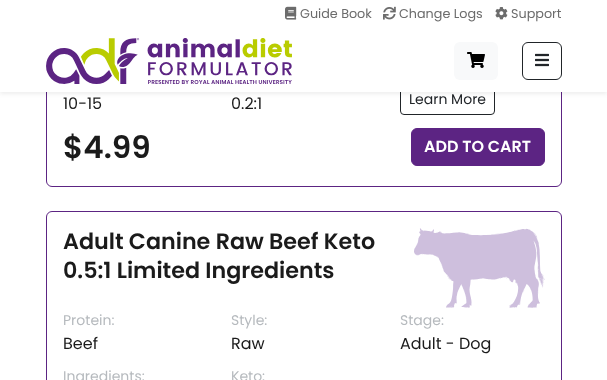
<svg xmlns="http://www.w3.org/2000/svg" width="607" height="380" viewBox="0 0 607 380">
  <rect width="100%" height="100%" fill="#fff"/>
  <rect x="46.5" y="-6.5" width="515" height="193" rx="5.5" fill="none" stroke="#5c2483"/>
  <rect x="400.5" y="84.5" width="94" height="30" rx="3.5" fill="none" stroke="#212529"/>
  <path d="M0 2h607v92H0z" fill="#00000012" filter="blur(2px)"/>
  <path d="M0 0h607v92H0z" fill="#fff"/>
  <image x="285" y="6" width="12" height="14" href="img/1.png"/>
  <image x="383" y="6" width="13" height="14" href="img/2.png"/>
  <image x="495" y="7" width="13" height="13" href="img/3.png"/>
  <image x="46" y="38" width="246" height="46" href="img/4.png"/>
  <rect x="454" y="42" width="44" height="38" rx="6" fill="#f8f9fa"/>
  <image x="467" y="52" width="18" height="16" href="img/5.png"/>
  <rect x="522.5" y="42.5" width="39" height="37" rx="5.5" fill="none" stroke="#212529"/>
  <image x="535" y="53" width="14" height="14" href="img/6.png"/>
  <rect x="411.5" y="128.5" width="133" height="37" rx="5.5" fill="#5c2483" stroke="#5c2483"/>
  <rect x="46.5" y="211.5" width="515" height="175" rx="5.5" fill="none" stroke="#5c2483"/>
  <image x="414" y="228" width="131" height="80" href="img/7.png"/>
  <g font-family="Poppins" font-size="12.75" fill="#6c6c6c">
    <text x="300" y="18">Guide Book</text>
    <text x="399" y="18">Change Logs</text>
    <text x="511" y="18">Support</text>
  </g>
  <g font-family="Poppins" font-size="16" fill="#1b1b1b">
    <text x="63" y="109">10-15</text>
    <text x="231" y="109">0.2:1</text>
  </g>
  <text x="409" y="104" font-family="Poppins" font-size="14" fill="#212529">Learn More</text>
  <text x="63" y="158" font-family="Poppins" font-size="31" font-weight="600" fill="#1b1b1b">$4.99</text>
  <text x="424" y="152" font-family="Poppins" font-size="16" font-weight="600" fill="#fff">ADD TO CART</text>
  <g font-family="Poppins" font-size="22.25" font-weight="600" fill="#1b1b1b">
    <text x="63" y="249">Adult Canine Raw Beef Keto</text>
    <text x="63" y="278">0.5:1 Limited Ingredients</text>
  </g>
  <text x="63" y="325" font-family="Poppins" font-size="14" fill="#b6babe">Protein:</text>
  <text x="63" y="349" font-family="Poppins" font-size="16" fill="#1b1b1b">Beef</text>
  <text x="231" y="325" font-family="Poppins" font-size="14" fill="#b6babe">Style:</text>
  <text x="231" y="349" font-family="Poppins" font-size="16" fill="#1b1b1b">Raw</text>
  <text x="400" y="325" font-family="Poppins" font-size="14" fill="#b6babe">Stage:</text>
  <text x="400" y="349" font-family="Poppins" font-size="16" fill="#1b1b1b">Adult - Dog</text>
  <g font-family="Poppins" font-size="14" fill="#b6babe">
    <text x="63" y="381">Ingredients:</text>
    <text x="231" y="381">Keto:</text>
  </g>
</svg>
